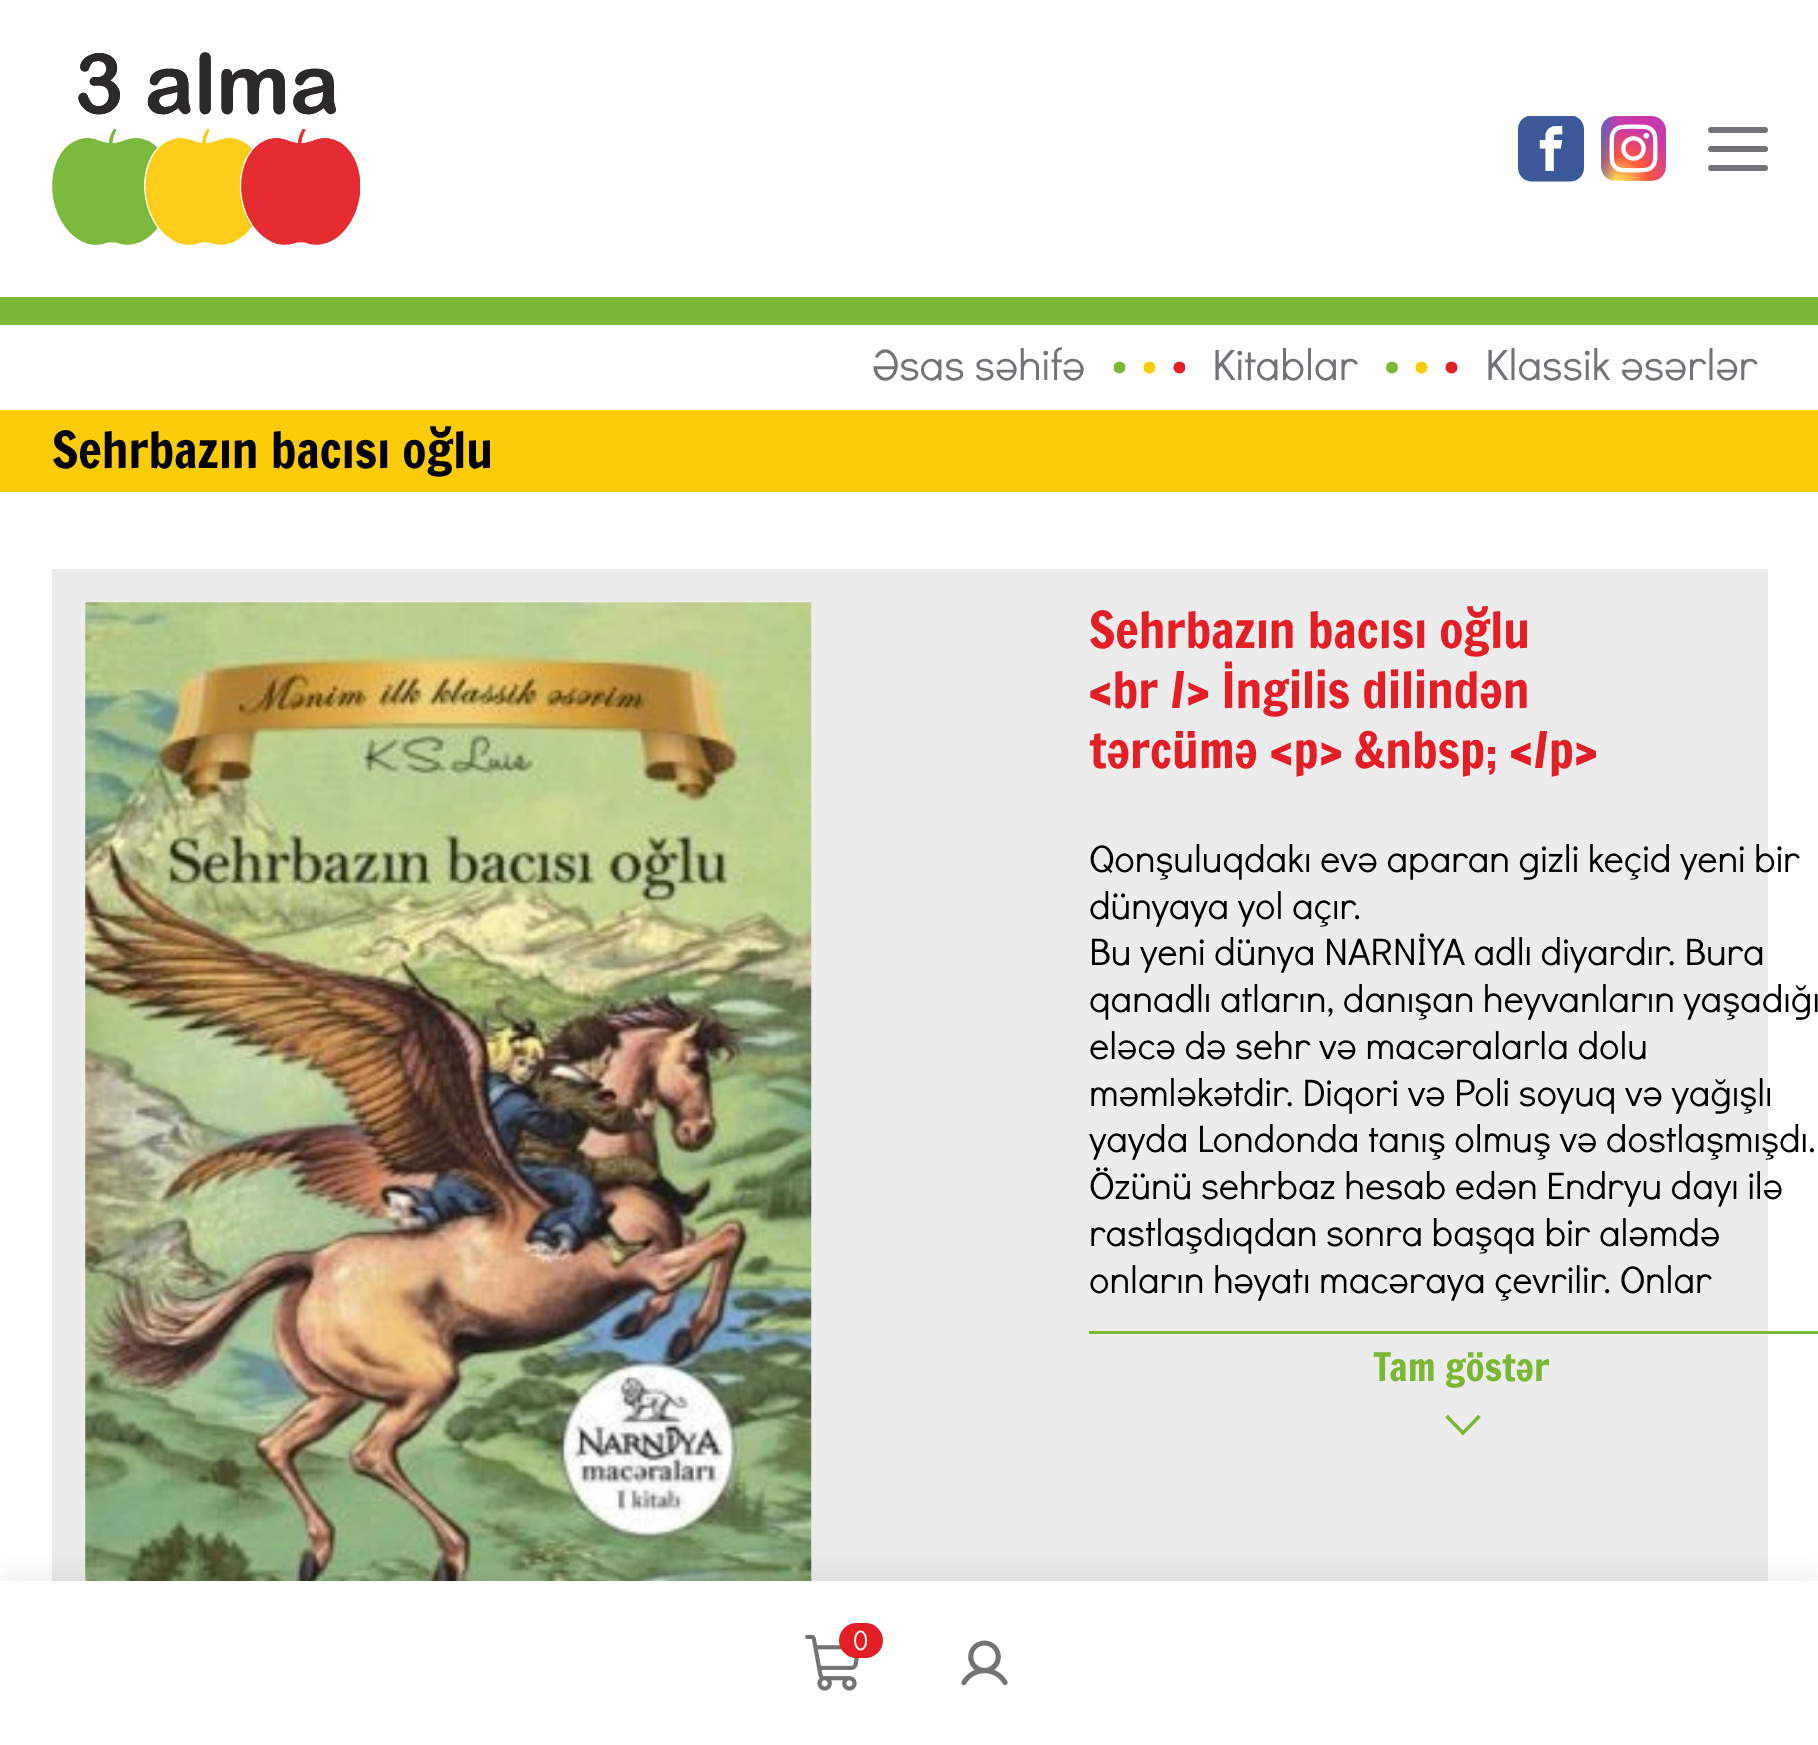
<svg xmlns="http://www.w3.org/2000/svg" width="1818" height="1745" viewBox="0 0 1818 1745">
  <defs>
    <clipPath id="clip1"><path d="M1114 360h71v14H1114z"/></clipPath>
  </defs>
  <rect width="100%" height="100%" fill="#fff"/>
  <g clip-path="url(#clip1)">
    <circle cx="1119.5" cy="367.5" r="6" fill="#78b833"/>
  </g>
  <circle cx="1149.5" cy="367.5" r="6" fill="#fecc00"/>
  <g clip-path="url(#clip1)">
    <circle cx="1179.5" cy="367.5" r="6" fill="#e31e24"/>
  </g>
  <circle cx="1392" cy="367.5" r="6" fill="#78b833"/>
  <circle cx="1421.5" cy="367.5" r="6" fill="#fecc00"/>
  <circle cx="1451.5" cy="367.5" r="6" fill="#e31e24"/>
  <path d="M0 410h1818v82H0z" fill="#fdcc09"/>
  <path d="M52 569h1716v1012H52z" fill="#ececec"/>
  <image x="85" y="602" width="727" height="979" href="img/1.png"/>
  <path d="M1089 1331h729v3H1089z" fill="#78b833"/>
  <path d="M1446.5 1416L1463 1433L1479.5 1416" fill="none" stroke="#78b833" stroke-width="3.6"/>
  <path d="M0 297h1818v28H0z" fill="#78b833"/>
  <image x="52" y="52" width="308" height="193" href="img/2.png"/>
  <image x="1518" y="116" width="66" height="66" href="img/3.png"/>
  <image x="1601" y="116" width="65" height="65" href="img/4.png"/>
  <rect x="1708" y="127" width="60" height="6" rx="3" fill="#727376"/>
  <rect x="1708" y="146" width="60" height="6" rx="3" fill="#727376"/>
  <rect x="1708" y="165" width="60" height="6" rx="3" fill="#727376"/>
  <path d="M0 1570h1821v165H0z" fill="#0000000f" filter="blur(14px)"/>
  <path d="M0 1581h1818v164H0z" fill="#fff"/>
  <image x="805" y="1634" width="54" height="57" href="img/5.png"/>
  <rect x="839" y="1623" width="44" height="35" rx="17.5" fill="#e31e24"/>
  <image x="961" y="1640" width="47" height="46" href="img/6.png"/>
  <g font-family="Didact Gothic" font-size="44" fill="#727376">
    <text x="872" y="380">Əsas səhifə</text>
    <text x="1212" y="380">Kitablar</text>
    <text x="1485" y="380">Klassik əsərlər</text>
  </g>
  <text x="52" y="468" font-family="Francois One" font-size="49.5" fill="#000">Sehrbazın bacısı oğlu</text>
  <g font-family="Francois One" font-size="49.5" fill="#e31e24">
    <text x="1089" y="648">Sehrbazın bacısı oğlu</text>
    <text x="1089" y="708">&lt;br /&gt; İngilis dilindən</text>
    <text x="1089" y="768">tərcümə &lt;p&gt; &amp;nbsp; &lt;/p&gt;</text>
  </g>
  <g font-family="Didact Gothic" font-size="38.5" fill="#000">
    <text x="1089" y="872">Qonşuluqdakı evə aparan gizli keçid yeni bir</text>
    <text x="1089" y="919">dünyaya yol açır.</text>
    <text x="1089" y="965">Bu yeni dünya NARNİYA adlı diyardır. Bura</text>
    <text x="1089" y="1012">qanadlı atların, danışan heyvanların yaşadığı</text>
    <text x="1089" y="1059">eləcə də sehr və macəralarla dolu</text>
    <text x="1089" y="1106">məmləkətdir. Diqori və Poli soyuq və yağışlı</text>
    <text x="1089" y="1152">yayda Londonda tanış olmuş və dostlaşmışdı.</text>
    <text x="1089" y="1199">Özünü sehrbaz hesab edən Endryu dayı ilə</text>
    <text x="1089" y="1246">rastlaşdıqdan sonra başqa bir aləmdə</text>
    <text x="1089" y="1293">onların həyatı macəraya çevrilir. Onlar</text>
  </g>
  <text x="1373" y="1381" font-family="Francois One" font-size="38.5" fill="#78b833">Tam göstər</text>
  <text x="853" y="1650" font-family="Didact Gothic" font-size="28" fill="#fff">0</text>
</svg>
